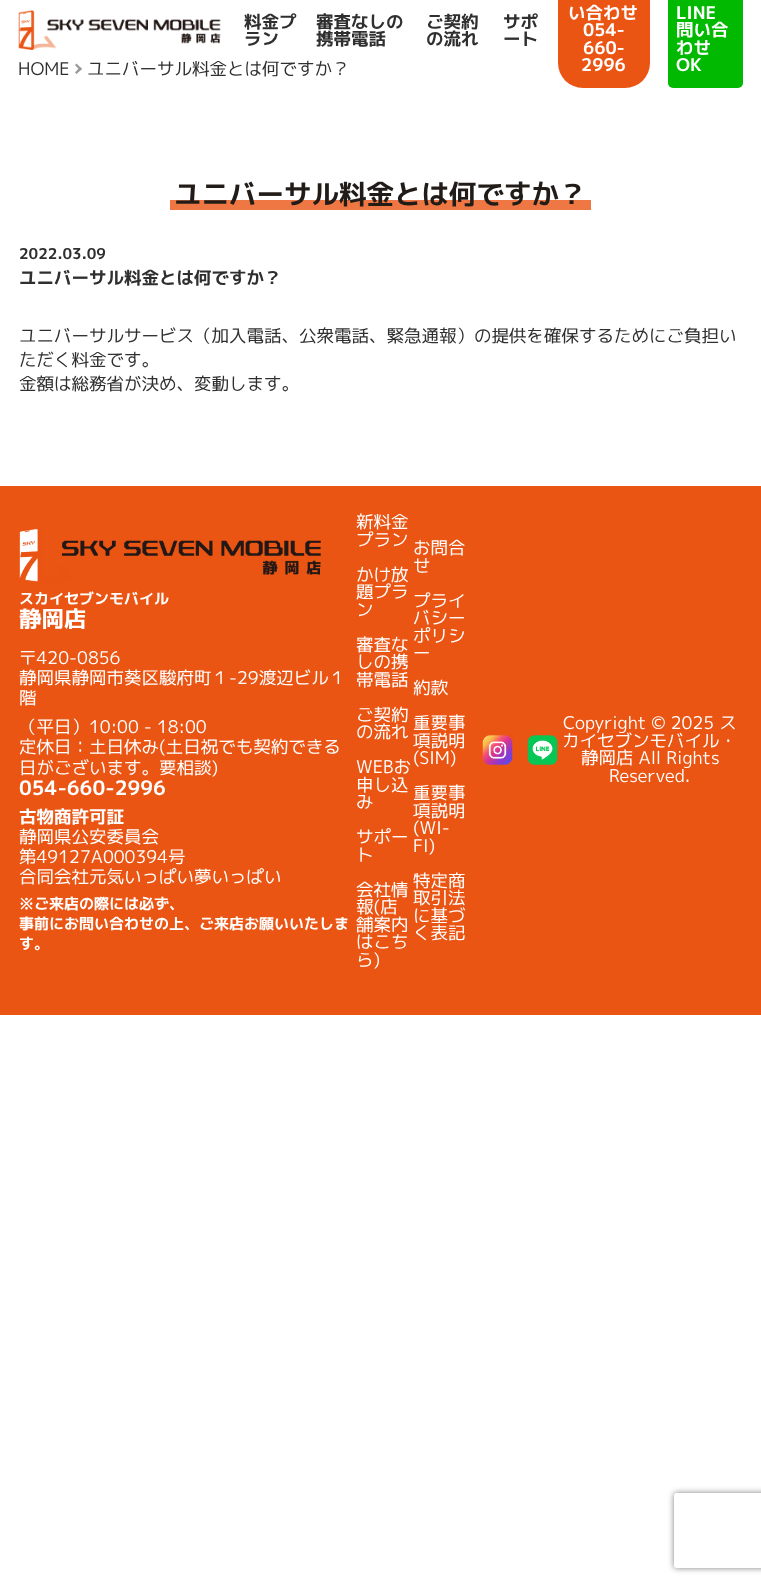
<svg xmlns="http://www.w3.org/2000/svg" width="761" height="1584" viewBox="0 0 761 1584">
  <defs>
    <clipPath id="clip1"><path d="M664 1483H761V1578H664ZM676.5 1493H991.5C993 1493 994 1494 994 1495.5V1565.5C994 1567 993 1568 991.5 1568H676.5C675 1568 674 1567 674 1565.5V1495.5C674 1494 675 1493 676.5 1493Z" clip-rule="evenodd"/></clipPath>
  </defs>
  <rect width="100%" height="100%" fill="#fff"/>
  <image x="18" y="10" width="203" height="40" href="img/1.png"/>
  <rect x="558" y="-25" width="92" height="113" rx="25" fill="#ea5514"/>
  <rect x="668" y="-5" width="75" height="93" rx="5" fill="#00b900"/>
  <path d="M76.5 63.5L82 69L80 70.5L75 65Z" fill="#999"/>
  <path d="M80 67L82 69L76.5 74L75 72.5Z" fill="#999"/>
  <path d="M170 200h421v10H170z" fill="#ee7743"/>
  <path d="M0 486h761v529H0z" fill="#ea5514"/>
  <image x="19" y="529" width="302" height="53" href="img/2.png"/>
  <image x="482" y="735" width="31" height="30" href="img/3.png"/>
  <image x="527" y="735" width="31" height="30" href="img/4.png"/>
  <g clip-path="url(#clip1)">
    <rect x="674" y="1493" width="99" height="75" rx="2.5" fill="#808080" filter="blur(3px)"/>
  </g>
  <g font-family="'M PLUS 1p'" font-size="17.5" font-weight="bold" fill="#2f2f2f">
    <text x="244" y="28">料金プ</text>
    <text x="244" y="45">ラン</text>
    <text x="316" y="28">審査なしの</text>
    <text x="316" y="45">携帯電話</text>
    <text x="426" y="28">ご契約</text>
    <text x="426" y="45">の流れ</text>
    <text x="503" y="28">サポ</text>
    <text x="503" y="45">ート</text>
  </g>
  <g font-family="'M PLUS 1p'" font-size="17.5" font-weight="bold" fill="#fff">
    <text x="568" y="19">い合わせ</text>
    <text x="583" y="36">054-</text>
    <text x="583" y="54">660-</text>
    <text x="581" y="71">2996</text>
    <text x="676" y="19">LINE</text>
    <text x="676" y="36">問い合</text>
    <text x="676" y="54">わせ</text>
    <text x="676" y="71">OK</text>
  </g>
  <g font-family="'M PLUS 1p'" font-size="17.5" fill="#2f2f2f">
    <text x="18" y="75">HOME</text>
    <text x="87" y="75">ユニバーサル料金とは何ですか？</text>
  </g>
  <text x="174" y="204" font-family="'M PLUS 1p'" font-size="27.5" font-weight="bold" fill="#221c18">ユニバーサル料金とは何ですか？</text>
  <text x="19" y="259" font-family="'M PLUS 1p'" font-size="15" font-weight="bold" fill="#2f2f2f">2022.03.09</text>
  <text x="19" y="284" font-family="'M PLUS 1p'" font-size="17.5" font-weight="bold" fill="#2f2f2f">ユニバーサル料金とは何ですか？</text>
  <g font-family="'M PLUS 1p'" font-size="17.5" fill="#2f2f2f">
    <text x="19" y="342">ユニバーサルサービス（加入電話、公衆電話、緊急通報）の提供を確保するためにご負担い</text>
    <text x="19" y="366">ただく料金です。</text>
    <text x="19" y="390">金額は総務省が決め、変動します。</text>
  </g>
  <text x="19" y="604" font-family="'M PLUS 1p'" font-size="15" font-weight="bold" fill="#fff">スカイセブンモバイル</text>
  <text x="19" y="627" font-family="'M PLUS 1p'" font-size="22.5" font-weight="bold" fill="#fff">静岡店</text>
  <g font-family="'M PLUS 1p'" font-size="17.5" fill="#fff">
    <text x="19" y="664">〒420-0856</text>
    <text x="19" y="684">静岡県静岡市葵区駿府町１-29渡辺ビル１</text>
    <text x="19" y="704">階</text>
    <text x="19" y="733">（平日）10:00 - 18:00</text>
    <text x="19" y="753">定休日：土日休み(土日祝でも契約できる</text>
    <text x="19" y="774">日がございます。要相談)</text>
  </g>
  <text x="19" y="795" font-family="'M PLUS 1p'" font-size="20" font-weight="bold" fill="#fff">054-660-2996</text>
  <text x="19" y="823" font-family="'M PLUS 1p'" font-size="17.5" font-weight="bold" fill="#fff">古物商許可証</text>
  <g font-family="'M PLUS 1p'" font-size="17.5" fill="#fff">
    <text x="19" y="843">静岡県公安委員会</text>
    <text x="19" y="863">第49127A000394号</text>
    <text x="19" y="883">合同会社元気いっぱい夢いっぱい</text>
  </g>
  <g font-family="'M PLUS 1p'" font-size="15" font-weight="bold" fill="#fff">
    <text x="19" y="909">※ご来店の際には必ず、</text>
    <text x="19" y="929">事前にお問い合わせの上、ご来店お願いいたしま</text>
    <text x="19" y="949">す。</text>
  </g>
  <g font-family="'M PLUS 1p'" font-size="17.5" fill="#fff">
    <text x="356" y="528">新料金</text>
    <text x="356" y="546">プラン</text>
    <text x="356" y="581">かけ放</text>
    <text x="356" y="598">題プラ</text>
    <text x="356" y="616">ン</text>
    <text x="356" y="651">審査な</text>
    <text x="356" y="668">しの携</text>
    <text x="356" y="686">帯電話</text>
    <text x="356" y="721">ご契約</text>
    <text x="356" y="738">の流れ</text>
    <text x="356" y="773">WEBお</text>
    <text x="356" y="791">申し込</text>
    <text x="356" y="808">み</text>
    <text x="356" y="843">サポー</text>
    <text x="356" y="861">ト</text>
    <text x="356" y="896">会社情</text>
    <text x="356" y="913">報(店</text>
    <text x="356" y="931">舗案内</text>
    <text x="356" y="948">はこち</text>
    <text x="356" y="966">ら)</text>
    <text x="413" y="554">お問合</text>
    <text x="413" y="572">せ</text>
    <text x="413" y="607">プライ</text>
    <text x="413" y="624">バシー</text>
    <text x="413" y="642">ポリシ</text>
    <text x="413" y="659">ー</text>
    <text x="413" y="694">約款</text>
    <text x="413" y="729">重要事</text>
    <text x="413" y="747">項説明</text>
    <text x="413" y="764">(SIM)</text>
    <text x="413" y="799">重要事</text>
    <text x="413" y="817">項説明</text>
    <text x="413" y="834">(WI-</text>
    <text x="413" y="852">FI)</text>
    <text x="413" y="887">特定商</text>
    <text x="413" y="904">取引法</text>
    <text x="413" y="922">に基づ</text>
    <text x="413" y="939">く表記</text>
    <text x="563" y="729">Copyright © 2025 ス</text>
    <text x="562" y="747">カイセブンモバイル・</text>
    <text x="581" y="764">静岡店 All Rights</text>
    <text x="609" y="782">Reserved.</text>
  </g>
</svg>
